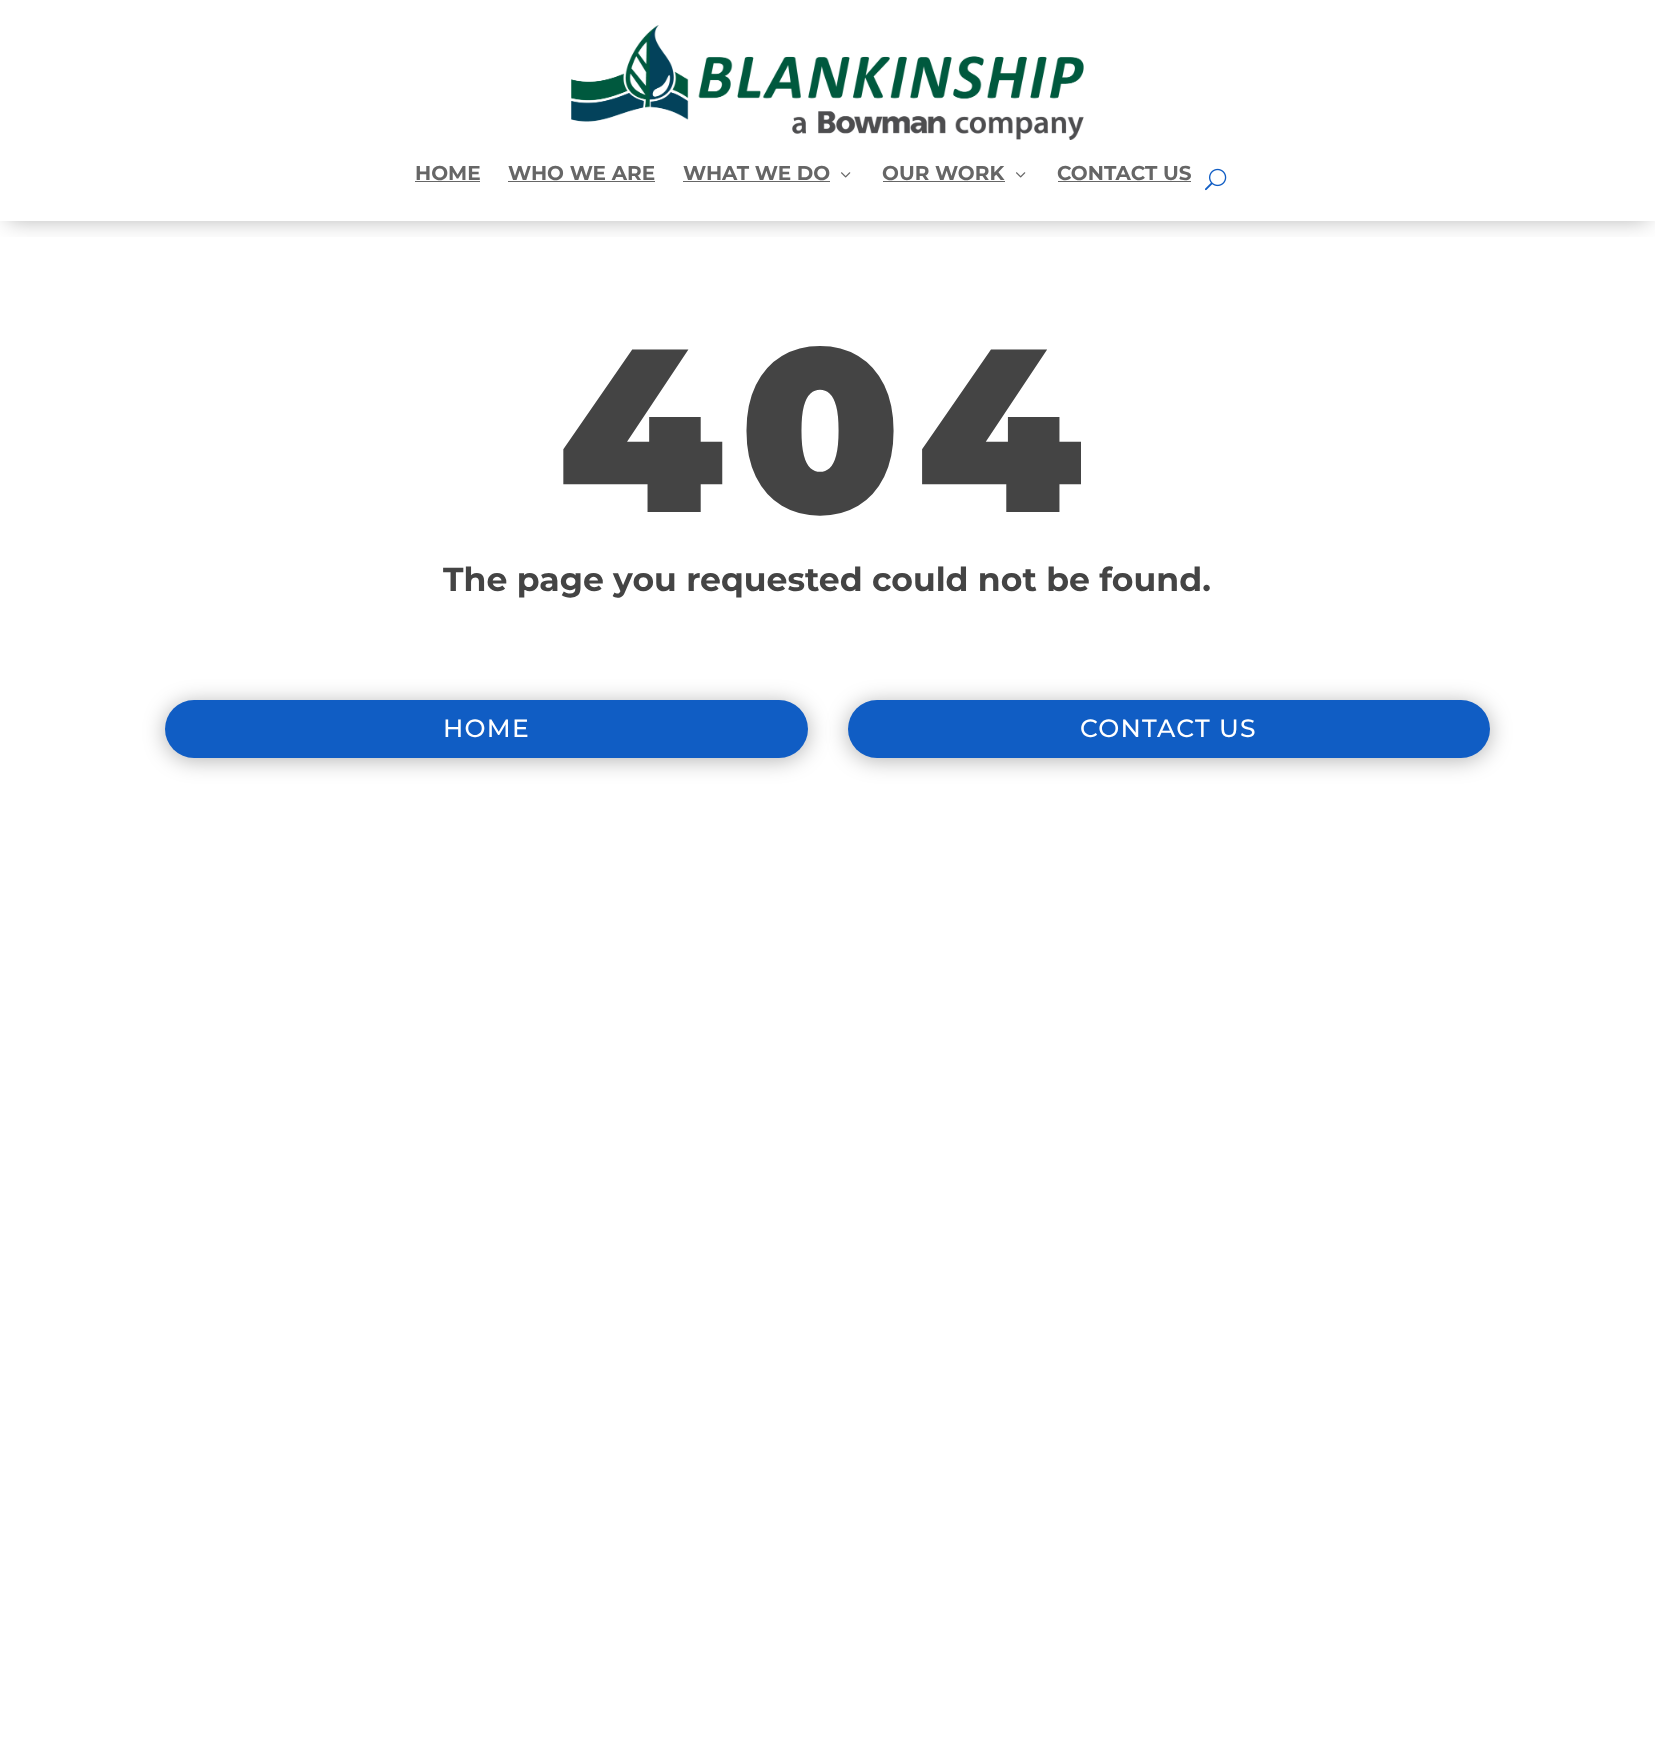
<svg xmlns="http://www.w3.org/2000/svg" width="1655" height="1748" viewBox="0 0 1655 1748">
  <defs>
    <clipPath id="clip1"><path d="M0 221h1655v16H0z"/></clipPath>
  </defs>
  <rect width="100%" height="100%" fill="#fff"/>
  <g clip-path="url(#clip1)">
    <path d="M8 14h1640v206H8z" fill="#0000004d" filter="blur(11px)"/>
  </g>
  <image x="571" y="25" width="513" height="115" href="img/1.png"/>
  <path d="M415 181h65v1H415z" fill="#666"/>
  <path d="M508 181h147v1H508z" fill="#666"/>
  <path d="M683 181h147v1H683z" fill="#666"/>
  <image x="841" y="172" width="10" height="6" href="img/2.png"/>
  <path d="M883 181h122v1H883z" fill="#666"/>
  <image x="1016" y="172" width="10" height="6" href="img/2.png"/>
  <path d="M1058 181h133v1H1058z" fill="#666"/>
  <image x="1205" y="168" width="22" height="23" href="img/3.png"/>
  <rect x="165" y="703" width="643" height="57" rx="28.5" fill="#0000004d" filter="blur(11px)"/>
  <rect x="165" y="700" width="643" height="58" rx="29" fill="#105dc4"/>
  <rect x="848" y="703" width="642" height="57" rx="28.5" fill="#0000004d" filter="blur(11px)"/>
  <rect x="848" y="700" width="642" height="58" rx="29" fill="#105dc4"/>
  <g font-family="Montserrat" font-size="20" font-weight="bold" fill="#666">
    <text x="415" y="180">HOME</text>
    <text x="508" y="180">WHO WE ARE</text>
    <text x="683" y="180">WHAT WE DO</text>
    <text x="882" y="180">OUR WORK</text>
    <text x="1057" y="180">CONTACT US</text>
  </g>
  <text x="558" y="512" font-family="Montserrat" font-size="232" font-weight="900" letter-spacing="16.5" fill="#444">404</text>
  <text x="443" y="591" font-family="Montserrat" font-size="33.1" font-weight="bold" fill="#444">The page you requested could not be found.</text>
  <g font-family="Montserrat" font-size="25" font-weight="500" letter-spacing="1.25" fill="#fff">
    <text x="443" y="737">HOME</text>
    <text x="1080" y="737">CONTACT US</text>
  </g>
</svg>
